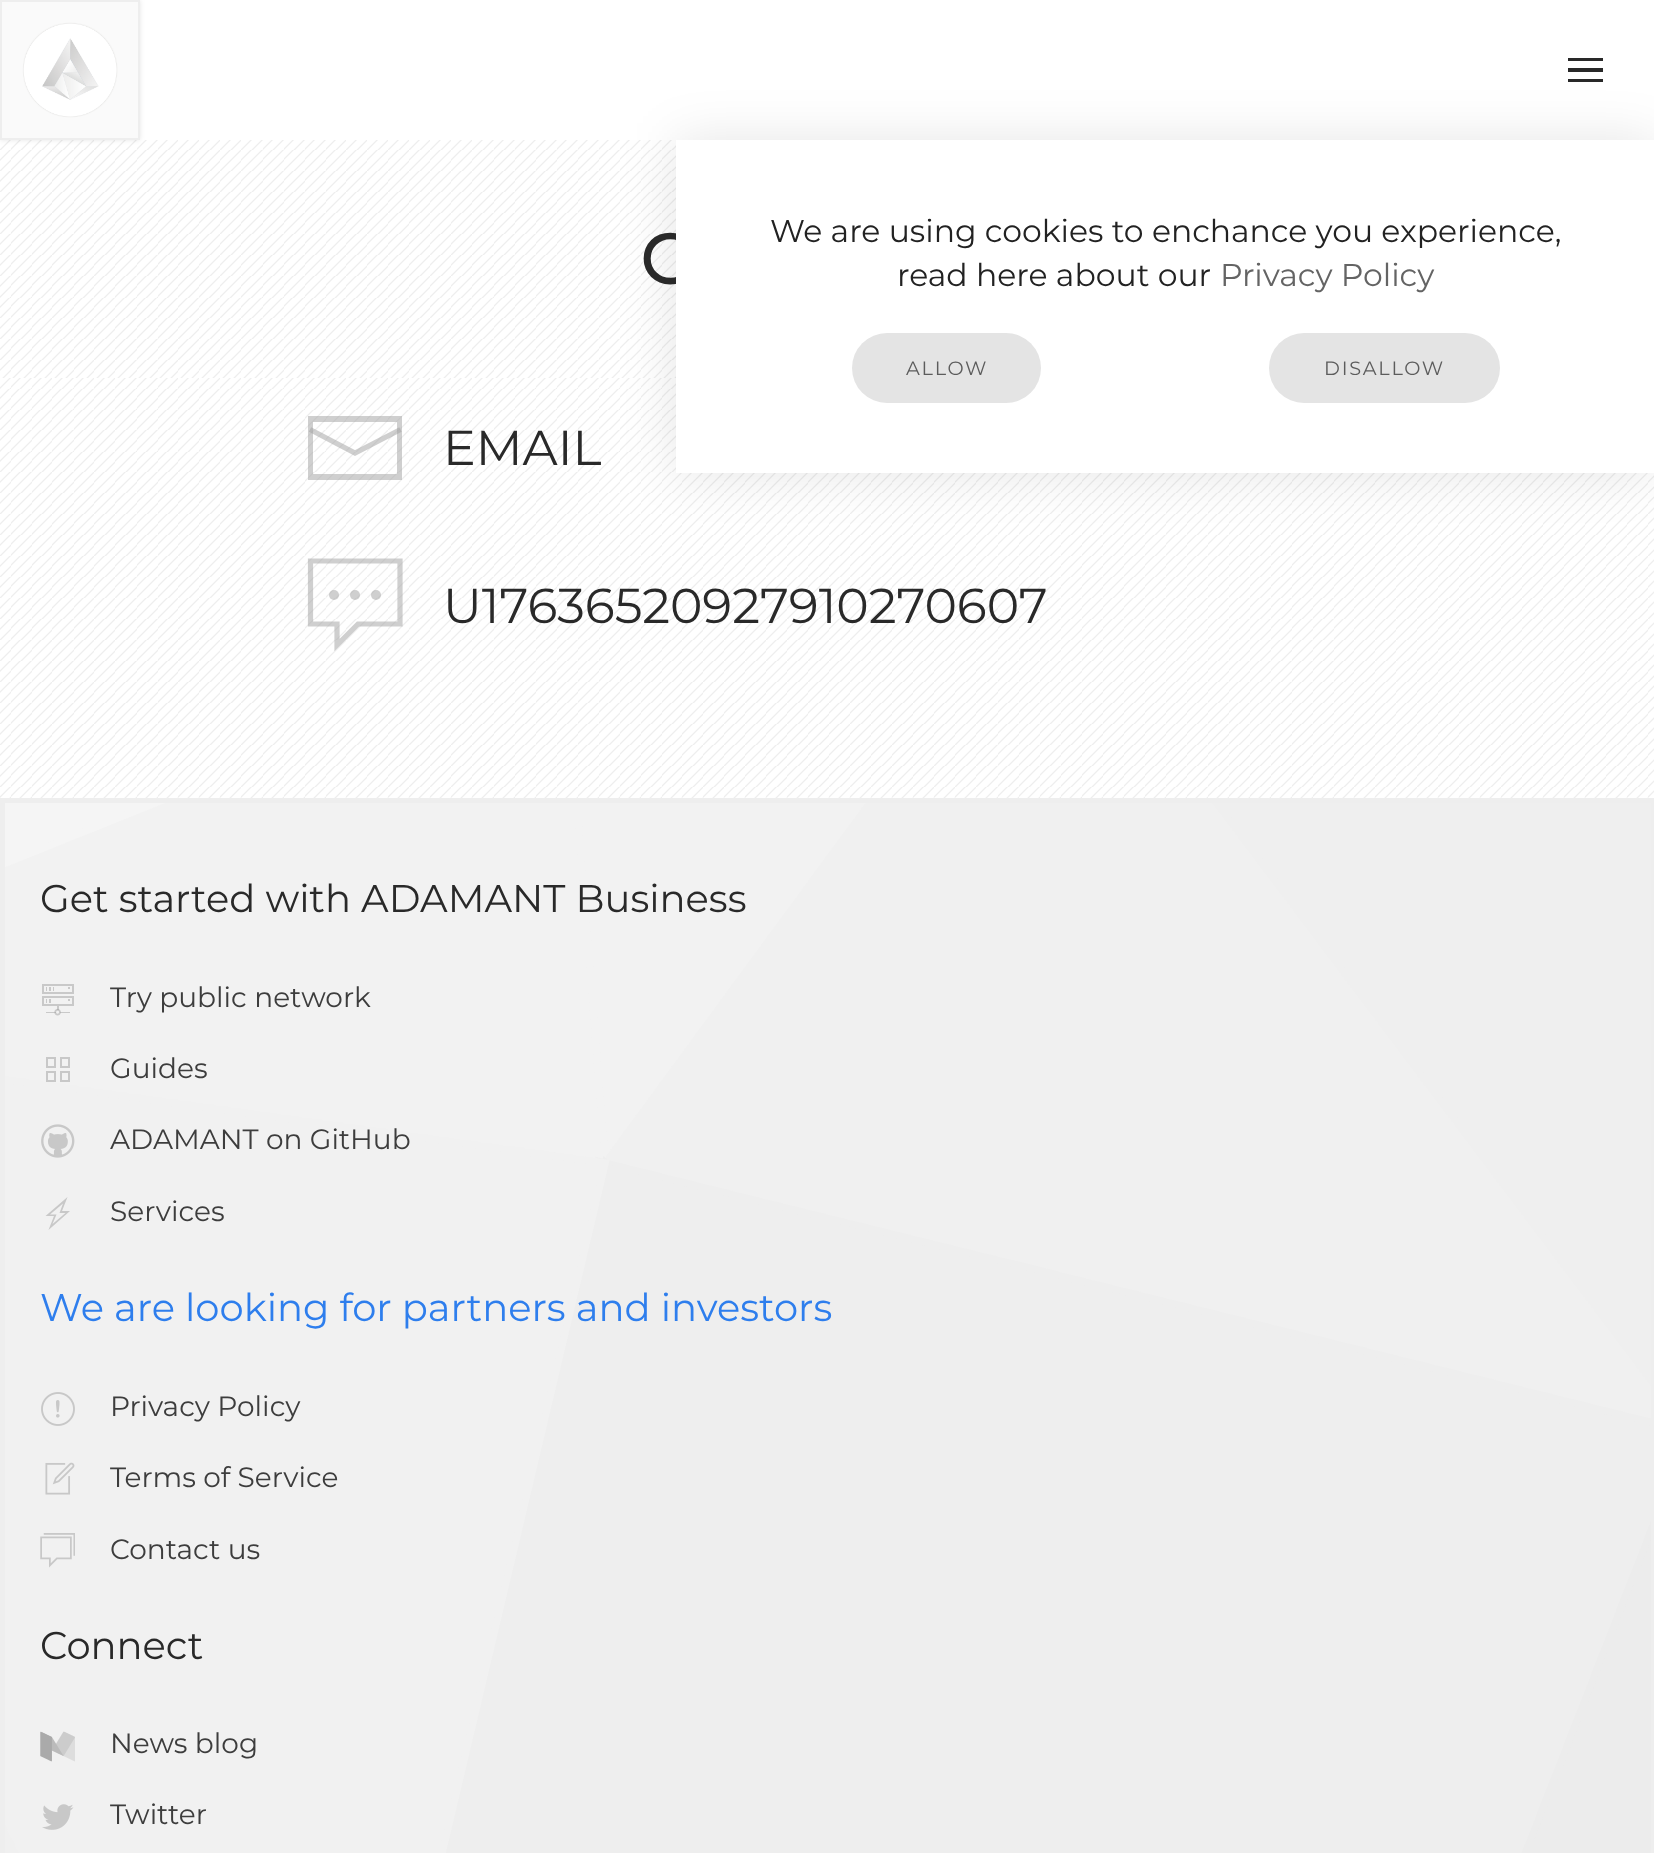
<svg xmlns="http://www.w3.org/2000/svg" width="1654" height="1853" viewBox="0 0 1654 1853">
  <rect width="100%" height="100%" fill="#fff"/>
  <path d="M1568 58h35v3H1568z" fill="#292929"/>
  <path d="M1568 68h35v4H1568z" fill="#292929"/>
  <path d="M1568 79h35v3H1568z" fill="#292929"/>
  <image x="0" y="140" width="676" height="238" href="img/1.png"/>
  <path d="M0 0h140v140H0z" fill="#0000001a" filter="blur(2.5px)"/>
  <path d="M1 1h138v138H1z" fill="none" stroke="#eee" stroke-width="2"/>
  <image x="2" y="2" width="136" height="136" href="img/2.png"/>
  <image x="0" y="378" width="1654" height="420" href="img/3.png"/>
  <path d="M676 140h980v333H676z" fill="#0000001a" filter="blur(26px)"/>
  <path d="M310 429.5L355 453L400.5 429.5" fill="none" stroke="#a0a0a082" stroke-width="5.2"/>
  <path d="M308 416V480H402V416ZM397 474H313V422H397Z" fill="#a0a0a082"/>
  <path d="M310.5 561H400V624H358L337 645V624H310.5Z" fill="none" stroke="#a0a0a082" stroke-width="5.2"/>
  <circle cx="334" cy="595" r="5" fill="#a0a0a082"/>
  <circle cx="355" cy="595" r="5" fill="#a0a0a082"/>
  <circle cx="376" cy="595" r="5" fill="#a0a0a082"/>
  <path d="M2.5 800.5h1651v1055H2.5z" fill="none" stroke="#eee" stroke-width="5"/>
  <image x="5" y="803" width="1646" height="1050" href="img/4.png"/>
  <image x="42" y="984" width="32" height="32" href="img/5.png"/>
  <path d="M47 1058h8v9H47z" fill="none" stroke="#c8c8c8" stroke-width="2"/>
  <path d="M61 1058h8v9H61z" fill="none" stroke="#c8c8c8" stroke-width="2"/>
  <path d="M47 1072h8v9H47z" fill="none" stroke="#c8c8c8" stroke-width="2"/>
  <path d="M61 1072h8v9H61z" fill="none" stroke="#c8c8c8" stroke-width="2"/>
  <image x="41" y="1124" width="34" height="34" href="img/6.png"/>
  <path d="M48.5 1230L54 1216H45.5L67.5 1197L62 1211H70ZM56.5 1214.5L52.5 1224L65.5 1213H59.5L63 1203.5L50 1214.5Z" fill="#c8c8c8"/>
  <image x="41" y="1392" width="34" height="34" href="img/7.png"/>
  <image x="45" y="1462" width="30" height="33" href="img/8.png"/>
  <image x="40" y="1533" width="35" height="35" href="img/9.png"/>
  <image x="40" y="1731" width="35" height="31" href="img/10.png"/>
  <image x="42" y="1804" width="32" height="26" href="img/11.png"/>
  <text x="640" y="284" font-family="Montserrat" font-size="70" font-weight="bold" fill="#292929">C</text>
  <path d="M676 140h978v333H676z" fill="#fff"/>
  <g font-family="Montserrat" font-size="31.5" font-weight="100" fill="#222">
    <text x="770" y="242">We are using cookies to enchance you experience,</text>
    <text x="897" y="286">read here about our</text>
  </g>
  <text x="1220" y="286" font-family="Montserrat" font-size="31.5" font-weight="100" fill="#646464">Privacy Policy</text>
  <rect x="852" y="333" width="189" height="70" rx="35" fill="#e4e4e4"/>
  <text x="906" y="375" font-family="Montserrat" font-size="19.25" font-weight="100" letter-spacing="1.75" fill="#5c5c5c">ALLOW</text>
  <rect x="1269" y="333" width="231" height="70" rx="35" fill="#e4e4e4"/>
  <text x="1324" y="375" font-family="Montserrat" font-size="19.25" font-weight="100" letter-spacing="1.75" fill="#5c5c5c">DISALLOW</text>
  <g font-family="Montserrat" font-size="49" font-weight="100" fill="#292929">
    <text x="443" y="465">EMAIL</text>
    <text x="443" y="623">U17636520927910270607</text>
  </g>
  <text x="40" y="912" font-family="Montserrat" font-size="38.5" font-weight="100" fill="#292929">Get started with ADAMANT Business</text>
  <g font-family="Montserrat" font-size="28" font-weight="100" fill="#3d3d3d">
    <text x="110" y="1007">Try public network</text>
    <text x="110" y="1078">Guides</text>
    <text x="110" y="1149">ADAMANT on GitHub</text>
    <text x="110" y="1221">Services</text>
  </g>
  <text x="40" y="1321" font-family="Montserrat" font-size="38.5" font-weight="100" fill="#2e7eed">We are looking for partners and investors</text>
  <g font-family="Montserrat" font-size="28" font-weight="100" fill="#3d3d3d">
    <text x="110" y="1416">Privacy Policy</text>
    <text x="110" y="1487">Terms of Service</text>
    <text x="110" y="1559">Contact us</text>
  </g>
  <text x="40" y="1659" font-family="Montserrat" font-size="38.5" font-weight="100" fill="#292929">Connect</text>
  <g font-family="Montserrat" font-size="28" font-weight="100" fill="#3d3d3d">
    <text x="110" y="1753">News blog</text>
    <text x="110" y="1824">Twitter</text>
  </g>
</svg>
